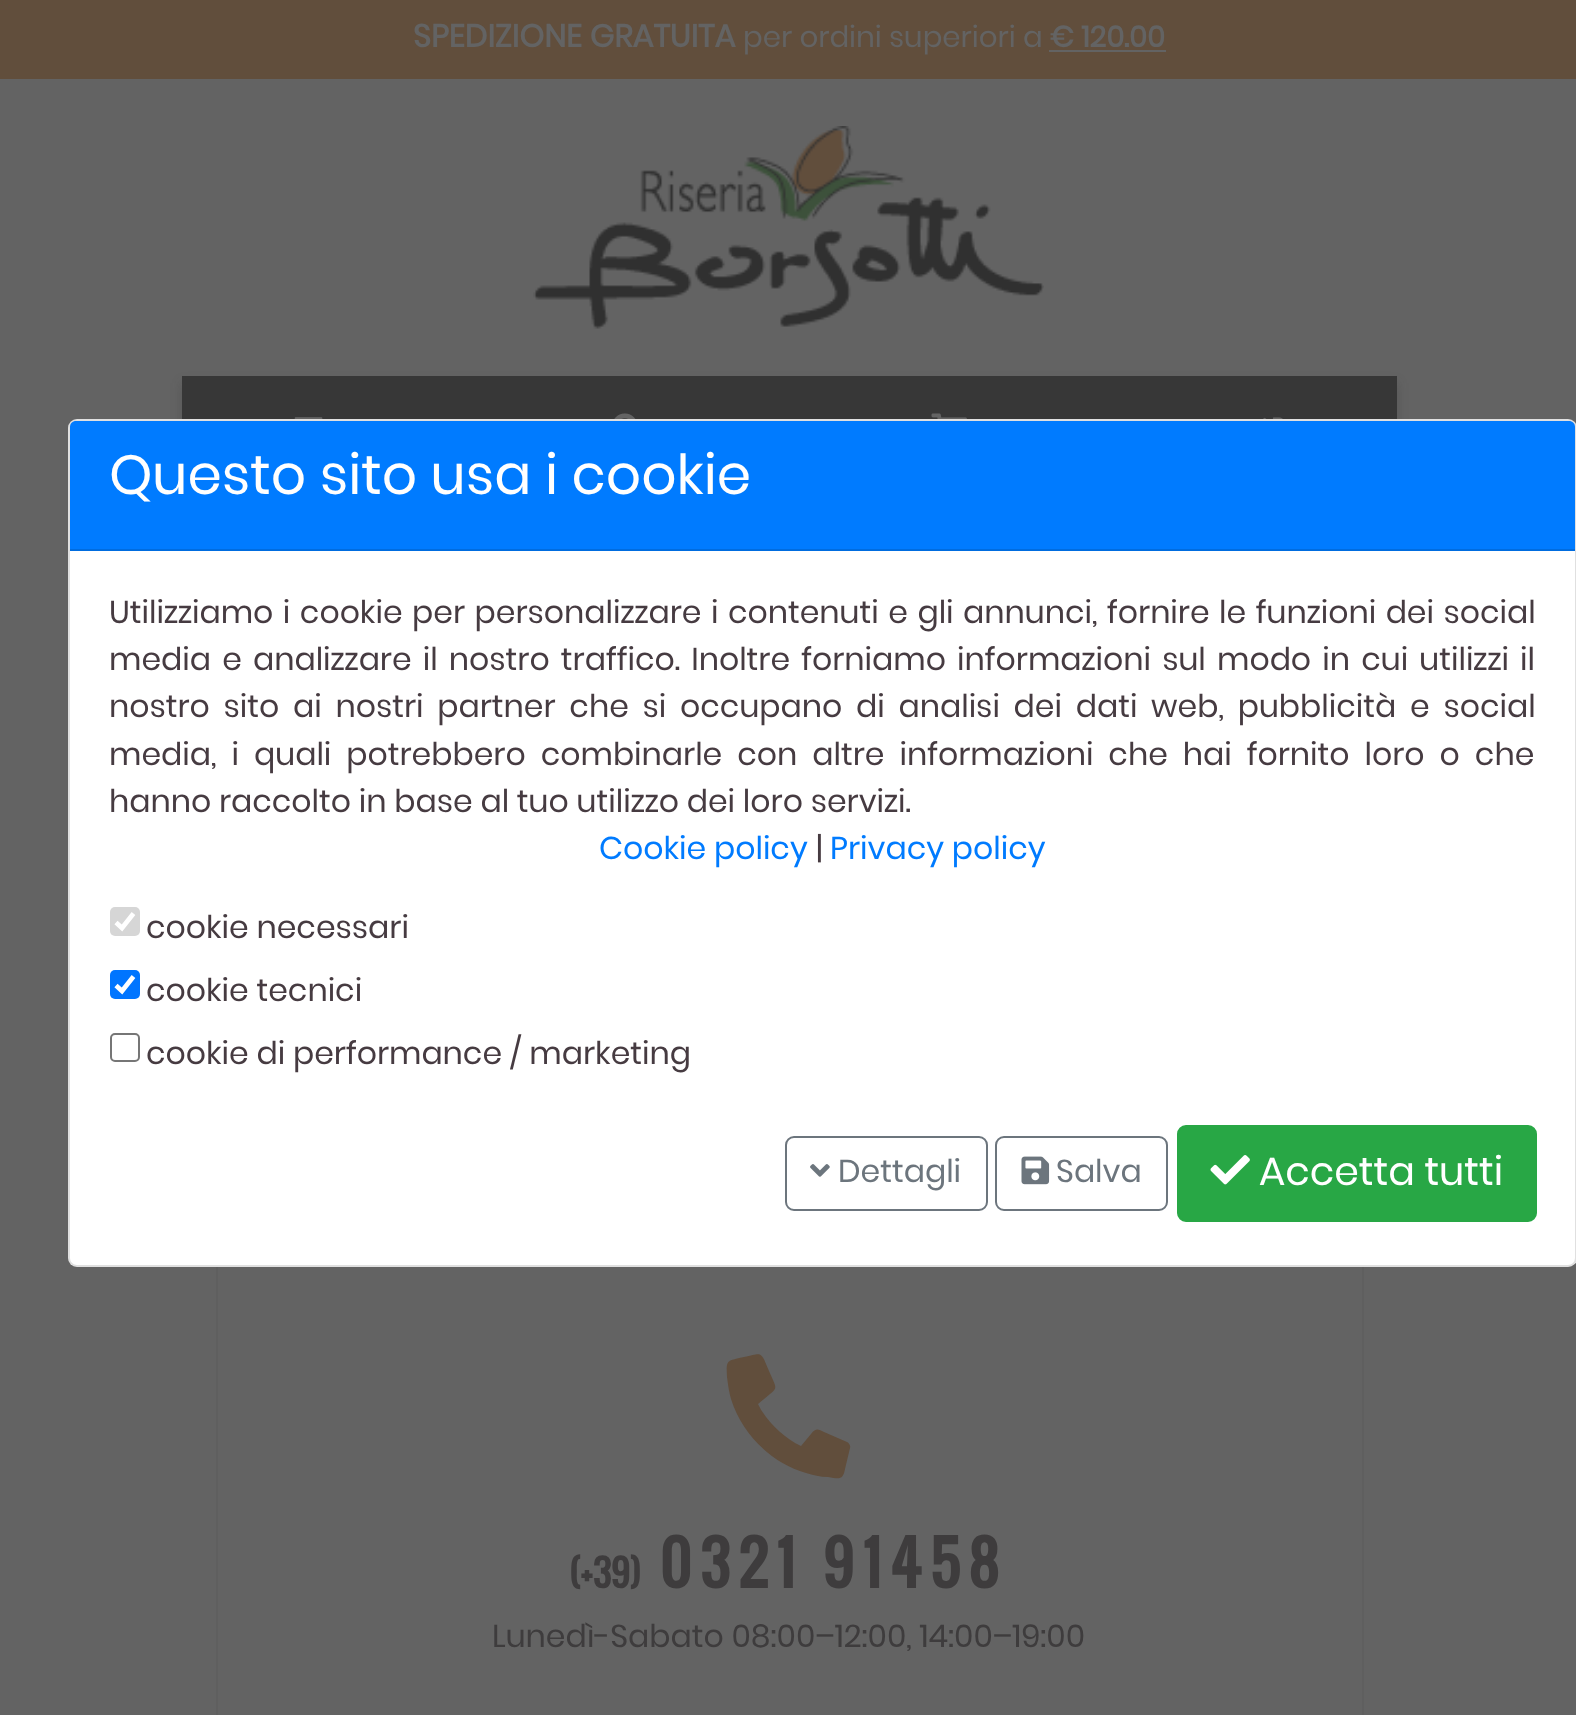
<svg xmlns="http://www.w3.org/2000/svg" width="1576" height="1715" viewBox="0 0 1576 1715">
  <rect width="100%" height="100%" fill="#636363"/>
  <path d="M0 0h1576v79H0z" fill="#614e3c"/>
  <path d="M1049 50h117v2H1049z" fill="#636363"/>
  <image x="533" y="126" width="511" height="203" href="img/1.png"/>
  <path d="M182 383h1215v114H182z" fill="#30303040" filter="blur(5.5px)"/>
  <path d="M182 376h1215v43H182z" fill="#373737"/>
  <image x="294" y="417" width="29" height="2" href="img/2.png"/>
  <image x="614" y="413" width="22" height="6" href="img/3.png"/>
  <image x="931" y="413" width="36" height="6" href="img/4.png"/>
  <image x="1263" y="417" width="20" height="2" href="img/5.png"/>
  <path d="M217 1266h1146v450H217z" fill="none" stroke="#5f5f5f" stroke-width="2"/>
  <rect x="68" y="419" width="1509" height="848" rx="9" fill="#fff"/>
  <rect x="69" y="420" width="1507" height="846" rx="8" fill="none" stroke="#0000001f" stroke-width="2"/>
  <path d="M76 421H1569C1572.5 421 1575 423.5 1575 427V551H70V427C70 423.5 72.5 421 76 421Z" fill="#007bff"/>
  <path d="M70 549h1505v2H70z" fill="#006cdf"/>
  <rect x="110" y="907" width="30" height="29" rx="5" fill="#d6d6d6"/>
  <path d="M116 922.5L122 928L133.5 913.5" fill="none" stroke="#fff" stroke-width="4.7"/>
  <rect x="110" y="970" width="30" height="29" rx="5" fill="#0075ff"/>
  <path d="M116 985.5L122 991L133.5 976.5" fill="none" stroke="#fff" stroke-width="4.7"/>
  <rect x="111" y="1034" width="28" height="27" rx="4" fill="none" stroke="#767676" stroke-width="2"/>
  <rect x="786" y="1137" width="201" height="73" rx="8" fill="none" stroke="#6c757d" stroke-width="2"/>
  <image x="810" y="1164" width="20" height="13" href="img/6.png"/>
  <rect x="996" y="1137" width="171" height="73" rx="8" fill="none" stroke="#6c757d" stroke-width="2"/>
  <image x="1021" y="1156" width="29" height="29" href="img/7.png"/>
  <rect x="1178" y="1126" width="358" height="95" rx="8" fill="#28a745" stroke="#28a745" stroke-width="2"/>
  <image x="1210" y="1155" width="40" height="30" href="img/8.png"/>
  <path d="M847 1442C849 1443 851 1446 850 1448L845 1469C843 1480 840 1479 828 1477C820 1477 813 1475 806 1473C771 1463 742 1434 731 1399C729 1392 728 1385 727 1377C726 1359 727 1361 744 1357C763 1353 760 1350 769 1371L773 1380C776 1387 777 1389 770 1394L758 1404C766 1421 784 1438 801 1446L811 1434C816 1428 818 1429 824 1432Z" fill="#614e3c"/>
  <text x="413" y="47" font-family="Poppins" font-size="31.5" font-weight="bold" fill="#636363">SPEDIZIONE GRATUITA</text>
  <text x="743" y="47" font-family="Poppins" font-size="29.25" fill="#636363">per ordini superiori a</text>
  <text x="1050" y="47" font-family="Poppins" font-size="29.25" font-weight="bold" fill="#636363">€ 120.00</text>
  <text x="109" y="494" font-family="Poppins" font-size="55.1" fill="#fff">Questo sito usa i cookie</text>
  <g font-family="Poppins" font-size="31.5" fill="#463b41">
    <text x="109" y="623" word-spacing="1.75">Utilizziamo i cookie per personalizzare i contenuti e gli annunci, fornire le funzioni dei social</text>
    <text x="109" y="670" word-spacing="3.4">media e analizzare il nostro traffico. Inoltre forniamo informazioni sul modo in cui utilizzi il</text>
    <text x="109" y="717" word-spacing="6">nostro sito ai nostri partner che si occupano di analisi dei dati web, pubblicità e social</text>
    <text x="109" y="765" word-spacing="7.25">media, i quali potrebbero combinarle con altre informazioni che hai fornito loro o che</text>
    <text x="109" y="812">hanno raccolto in base al tuo utilizzo dei loro servizi.</text>
  </g>
  <text x="599" y="859" font-family="Poppins" font-size="31.5" fill="#007bff">Cookie policy</text>
  <text x="816" y="859" font-family="Poppins" font-size="31.5" fill="#463b41">|</text>
  <text x="830" y="859" font-family="Poppins" font-size="31.5" fill="#007bff">Privacy policy</text>
  <g font-family="Poppins" font-size="31.5" fill="#463b41">
    <text x="146" y="938">cookie necessari</text>
    <text x="146" y="1001">cookie tecnici</text>
    <text x="146" y="1064">cookie di performance / marketing</text>
  </g>
  <g font-family="Poppins" font-size="31.5" fill="#6c757d">
    <text x="838" y="1182">Dettagli</text>
    <text x="1056" y="1182">Salva</text>
  </g>
  <text x="1259" y="1185" font-family="Poppins" font-size="39.5" fill="#fff">Accetta tutti</text>
  <text x="569" y="1588" font-family="Oswald" font-size="36" font-weight="bold" fill="#3e3c3d">(+39)</text>
  <text x="660" y="1588" font-family="Oswald" font-size="58.5" font-weight="bold" letter-spacing="9" fill="#3e3c3d">0321 91458</text>
  <text x="492" y="1647" font-family="Poppins" font-size="31.5" fill="#3e3c3d">Lunedì-Sabato 08:00–12:00, 14:00–19:00</text>
</svg>
